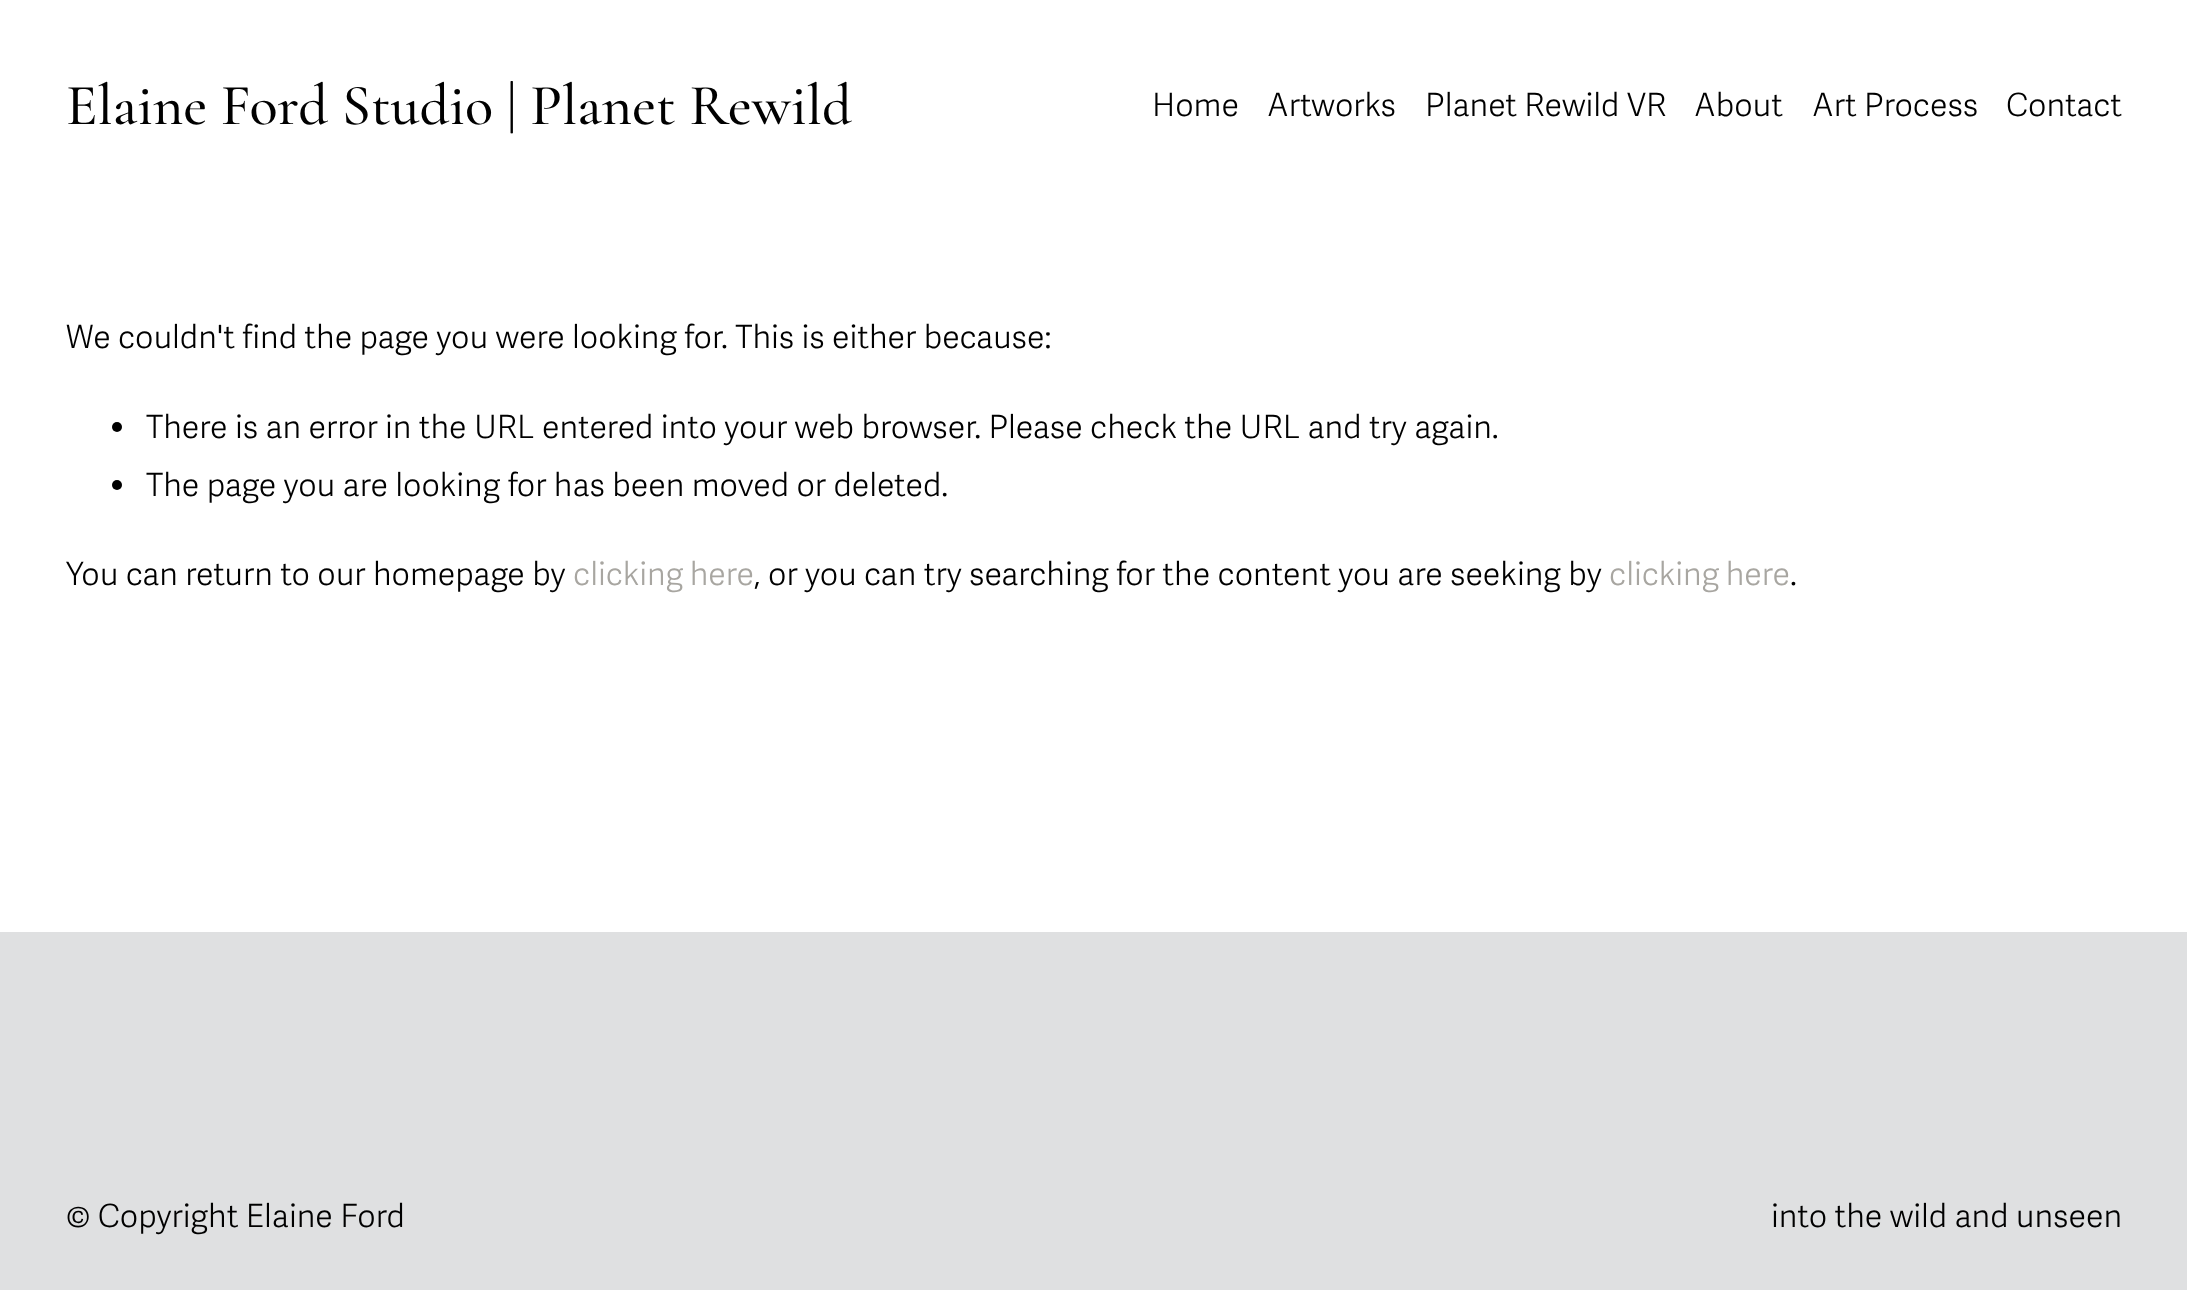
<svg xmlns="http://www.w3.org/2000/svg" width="2187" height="1290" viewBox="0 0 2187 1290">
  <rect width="100%" height="100%" fill="#fff"/>
  <circle cx="117" cy="427" r="5" fill="#000"/>
  <circle cx="117" cy="485" r="5" fill="#000"/>
  <path d="M0 932h2187v358H0z" fill="#dfe0e1"/>
  <text x="66" y="124" font-family="Cormorant Garamond" font-size="58.25" font-weight="500" fill="#000">Elaine Ford Studio | Planet Rewild</text>
  <g font-family="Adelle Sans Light" font-size="32" font-weight="300" fill="#000">
    <text x="1152" y="116">Home</text>
    <text x="1267" y="116">Artworks</text>
    <text x="1425" y="116">Planet Rewild VR</text>
    <text x="1694" y="116">About</text>
    <text x="1812" y="116">Art Process</text>
    <text x="2006" y="116">Contact</text>
    <text x="66" y="348">We couldn't find the page you were looking for. This is either because:</text>
    <text x="146" y="438">There is an error in the URL entered into your web browser. Please check the URL and try again.</text>
    <text x="146" y="496">The page you are looking for has been moved or deleted.</text>
    <text x="66" y="585">You can return to our homepage by</text>
  </g>
  <text x="573" y="585" word-spacing="-1" font-family="Adelle Sans Light" font-size="32" font-weight="300" fill="#a8a6a1">clicking here</text>
  <text x="754" y="585" font-family="Adelle Sans Light" font-size="32" font-weight="300" fill="#000">, or you can try searching for the content you are seeking by</text>
  <text x="1609" y="585" word-spacing="-1" font-family="Adelle Sans Light" font-size="32" font-weight="300" fill="#a8a6a1">clicking here</text>
  <g font-family="Adelle Sans Light" font-size="32" font-weight="300" fill="#000">
    <text x="1790" y="585">.</text>
    <text x="66" y="1227">© Copyright Elaine Ford</text>
    <text x="1771" y="1227">into the wild and unseen</text>
  </g>
</svg>
